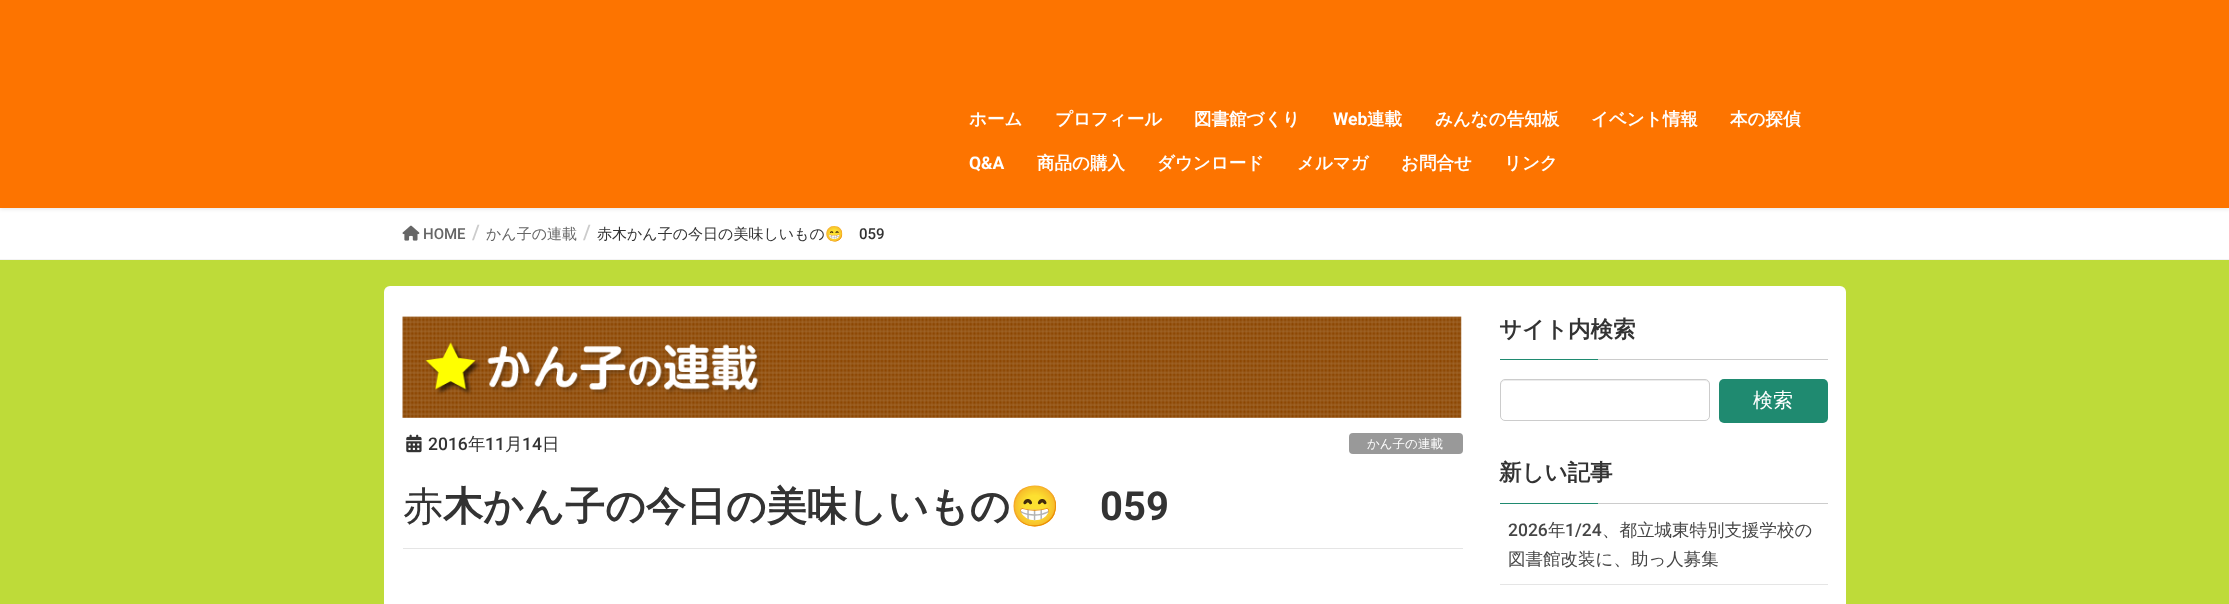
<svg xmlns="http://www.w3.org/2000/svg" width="2229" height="604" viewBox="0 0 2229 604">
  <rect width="100%" height="100%" fill="#fff"/>
  <path d="M0 1h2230v208H0z" fill="#0000001a" filter="blur(2px)"/>
  <path d="M0 0h2229v208H0z" fill="#fd7400"/>
  <path d="M0 259h2229v1H0z" fill="#f3f3f3"/>
  <image x="402" y="225" width="18" height="16" href="img/1.png"/>
  <path d="M0 260h2229v344H0z" fill="#bedb39"/>
  <rect x="384" y="286" width="1462" height="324" rx="6" fill="#fff"/>
  <image x="402" y="316" width="1060" height="102" href="img/2.png"/>
  <path d="M403 548h1060v1H403z" fill="#e5e5e5"/>
  <image x="406" y="434" width="16" height="19" href="img/3.png"/>
  <rect x="1349" y="433" width="114" height="21" rx="4" fill="#999"/>
  <path d="M1598 359h230v1H1598z" fill="#ccc"/>
  <path d="M1500 359h98v1H1500z" fill="#1f8a70"/>
  <path d="M1505 381H1705C1707 381 1709 383 1709 385V384C1709 382 1707 380 1705 380H1505C1503 380 1501 382 1501 384V385C1501 383 1503 381 1505 381Z" fill="#ececec"/>
  <rect x="1500.5" y="379.5" width="209" height="41" rx="4.5" fill="none" stroke="#ccc"/>
  <rect x="1719" y="379" width="109" height="44" rx="5" fill="#1f8a70"/>
  <path d="M1598 503h230v1H1598z" fill="#ccc"/>
  <path d="M1500 503h98v1H1500z" fill="#1f8a70"/>
  <path d="M1500 584h328v1H1500z" fill="#e5e5e5"/>
  <g font-family="WenQuanYi Zen Hei" font-size="17.5" font-weight="bold" fill="#fff">
    <text x="969" y="125">ホーム</text>
    <text x="1055" y="125">プロフィール</text>
    <text x="1194" y="125">図書館づくり</text>
  </g>
  <text x="1333" y="125" font-family="Roboto" font-size="17.5" font-weight="bold" fill="#fff">Web</text>
  <g font-family="WenQuanYi Zen Hei" font-size="17.5" font-weight="bold" fill="#fff">
    <text x="1367" y="125">連載</text>
    <text x="1435" y="125">みんなの告知板</text>
    <text x="1591" y="125">イベント情報</text>
    <text x="1730" y="125">本の探偵</text>
  </g>
  <text x="969" y="169" font-family="Roboto" font-size="17.5" font-weight="bold" fill="#fff">Q&amp;A</text>
  <g font-family="WenQuanYi Zen Hei" font-size="17.5" font-weight="bold" fill="#fff">
    <text x="1037" y="169">商品の購入</text>
    <text x="1157" y="169">ダウンロード</text>
    <text x="1297" y="169">メルマガ</text>
    <text x="1401" y="169">お問合せ</text>
    <text x="1504" y="169">リンク</text>
  </g>
  <text x="423" y="239" font-family="Roboto" font-size="15" font-weight="500" fill="#666">HOME</text>
  <text x="472" y="239" font-family="Roboto" font-size="20" font-weight="500" fill="#ccc">/</text>
  <text x="486" y="239" font-family="WenQuanYi Zen Hei" font-size="15" font-weight="500" fill="#666">かん子の連載</text>
  <text x="583" y="239" font-family="Roboto" font-size="20" font-weight="500" fill="#ccc">/</text>
  <text x="597" y="239" font-family="WenQuanYi Zen Hei" font-size="15" font-weight="500" fill="#333">赤木かん子の今日の美味しいもの</text>
  <text x="825" y="239" font-family="Noto Color Emoji" font-size="15" fill="#333">😁</text>
  <text x="859" y="239" font-family="Roboto" font-size="15" font-weight="500" fill="#333">059</text>
  <text x="428" y="450" font-family="Roboto" font-size="17.5" font-weight="500" fill="#333">2016</text>
  <text x="468" y="450" font-family="WenQuanYi Zen Hei" font-size="17.5" font-weight="500" fill="#333">年</text>
  <text x="485" y="450" font-family="Roboto" font-size="17.5" font-weight="500" fill="#333">11</text>
  <text x="505" y="450" font-family="WenQuanYi Zen Hei" font-size="17.5" font-weight="500" fill="#333">月</text>
  <text x="522" y="450" font-family="Roboto" font-size="17.5" font-weight="500" fill="#333">14</text>
  <text x="542" y="450" font-family="WenQuanYi Zen Hei" font-size="17.5" font-weight="500" fill="#333">日</text>
  <text x="1367" y="448" font-family="WenQuanYi Zen Hei" font-size="12.5" font-weight="500" fill="#fff">かん子の連載</text>
  <text x="403" y="520" font-family="Noto Sans" font-size="40" font-weight="100" fill="#333">赤</text>
  <text x="443" y="520" font-family="WenQuanYi Zen Hei" font-size="40" font-weight="bold" fill="#333">木かん子の今日の美味しいもの</text>
  <text x="1010" y="520" font-family="Noto Color Emoji" font-size="40" font-weight="bold" fill="#333">😁</text>
  <text x="1100" y="520" font-family="Roboto" font-size="40" font-weight="bold" fill="#333">059</text>
  <text x="1499" y="337" font-family="WenQuanYi Zen Hei" font-size="22.5" font-weight="bold" fill="#333">サイト内検索</text>
  <text x="1753" y="407" font-family="WenQuanYi Zen Hei" font-size="20" font-weight="500" fill="#fff">検索</text>
  <text x="1499" y="480" font-family="WenQuanYi Zen Hei" font-size="22.5" font-weight="bold" fill="#333">新しい記事</text>
  <text x="1508" y="536" font-family="Roboto" font-size="17.5" font-weight="500" fill="#464646">2026</text>
  <text x="1548" y="536" font-family="WenQuanYi Zen Hei" font-size="17.5" font-weight="500" fill="#464646">年</text>
  <text x="1565" y="536" font-family="Roboto" font-size="17.5" font-weight="500" fill="#464646">1/24</text>
  <g font-family="WenQuanYi Zen Hei" font-size="17.5" font-weight="500" fill="#464646">
    <text x="1602" y="536">、都立城東特別支援学校の</text>
    <text x="1508" y="565">図書館改装に、助っ人募集</text>
  </g>
</svg>
